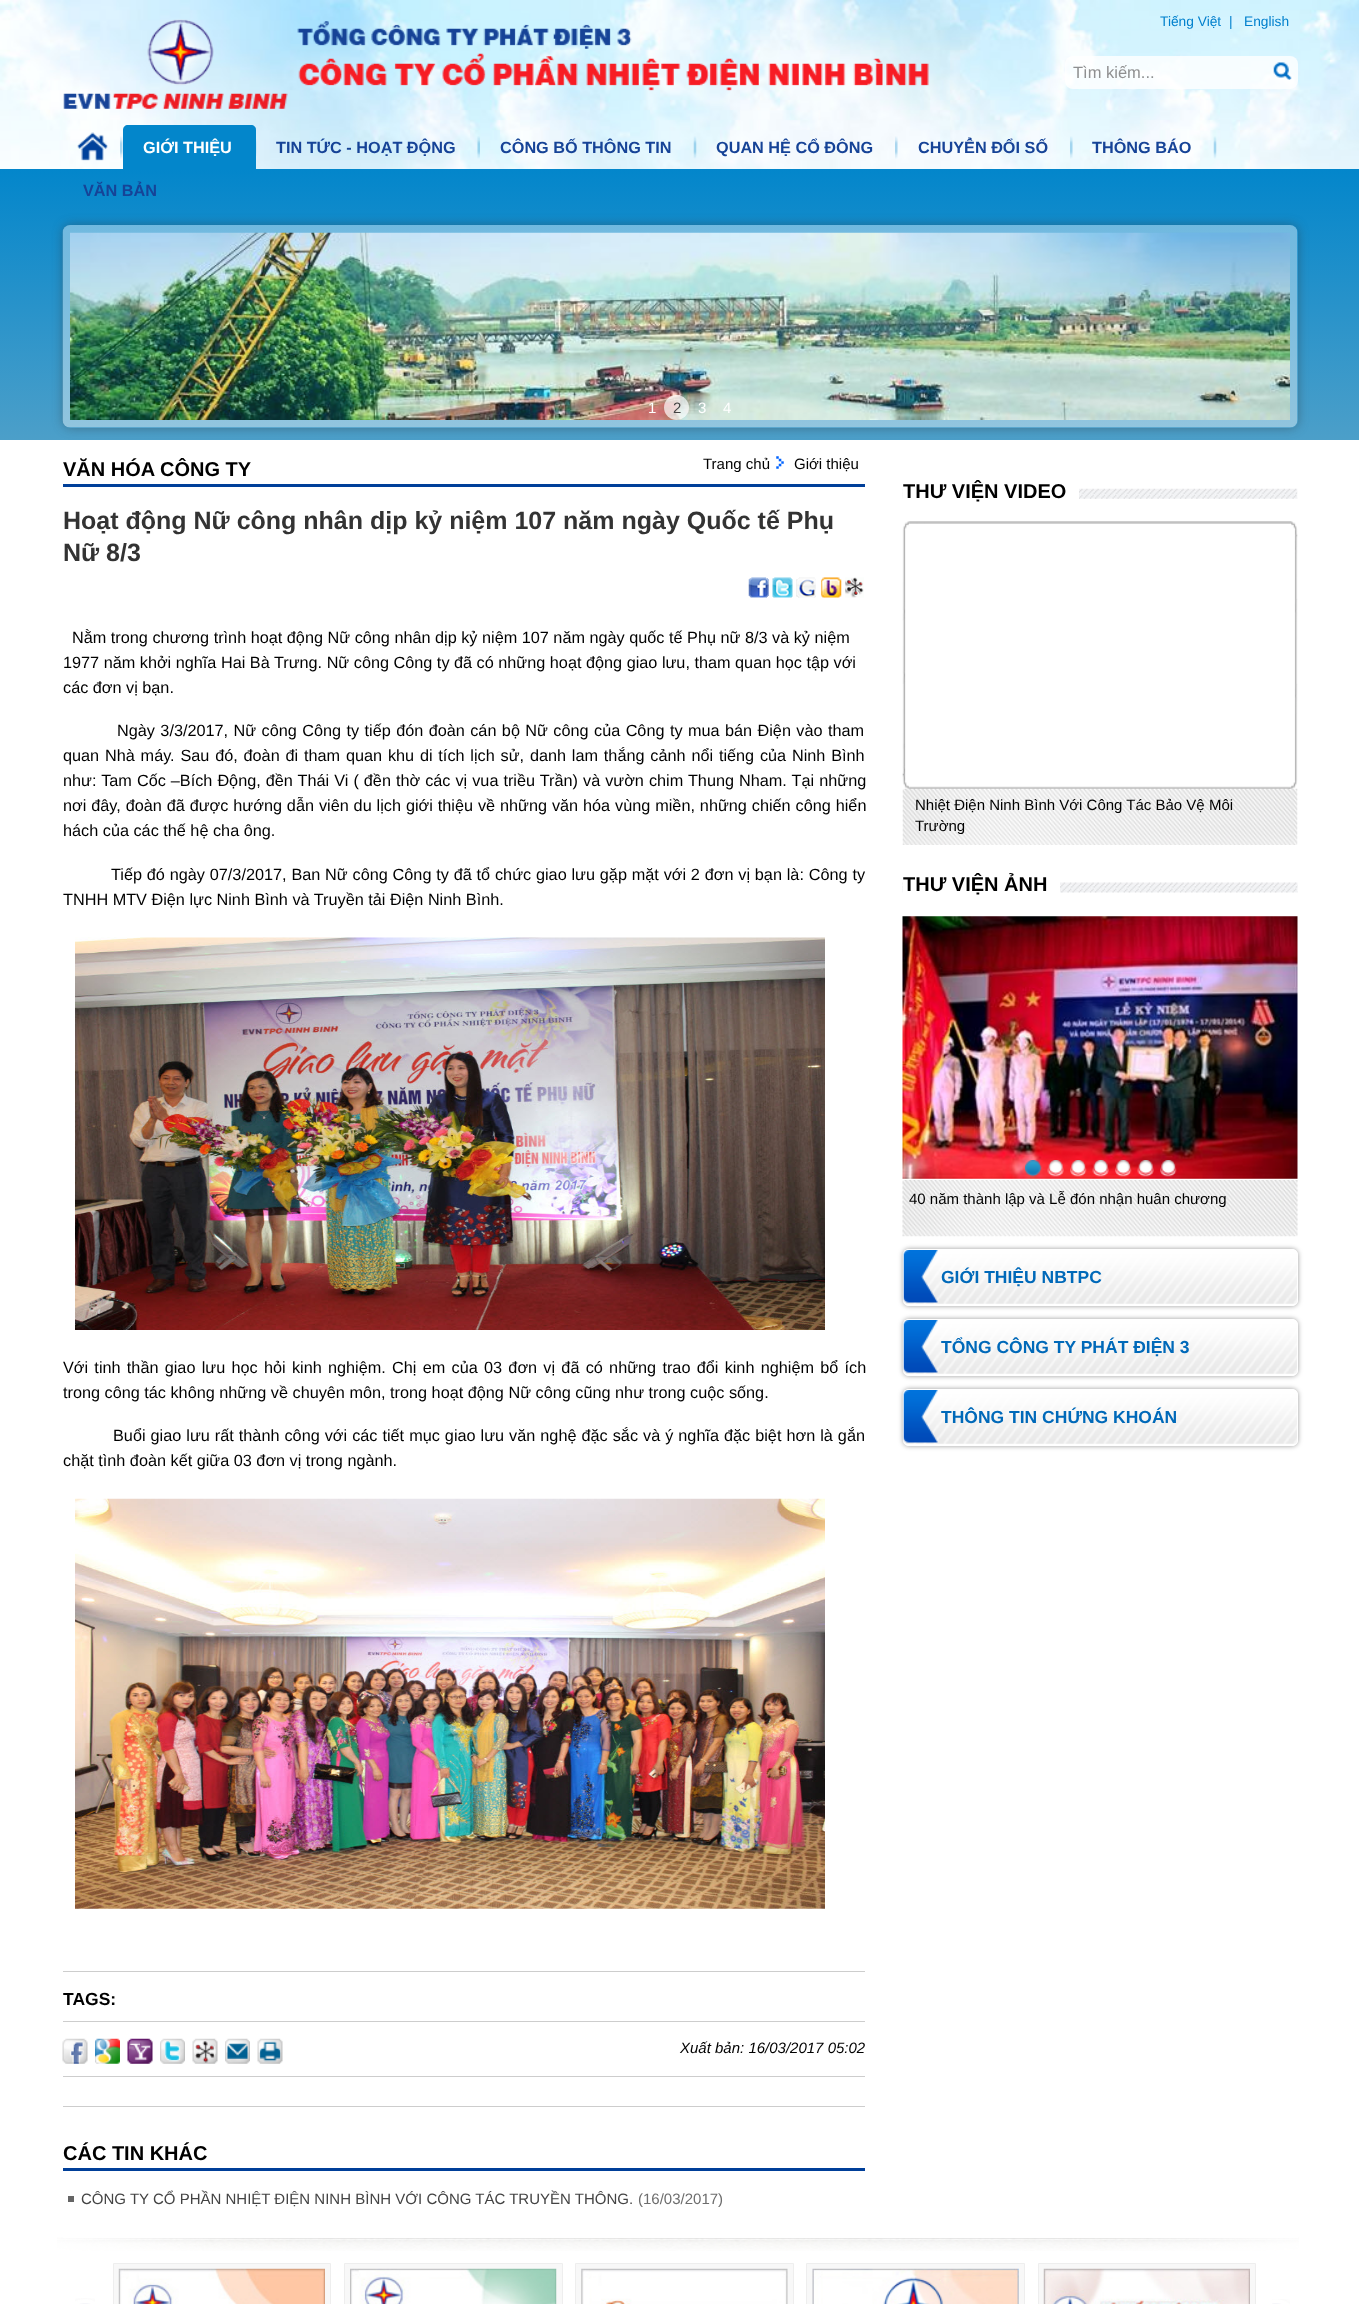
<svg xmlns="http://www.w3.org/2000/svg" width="1359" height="2304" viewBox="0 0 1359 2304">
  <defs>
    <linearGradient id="g1" gradientUnits="userSpaceOnUse" x1="680" y1="169" x2="680" y2="440"><stop offset="0" stop-color="#0386cb"/><stop offset="1" stop-color="#4c9fc9"/></linearGradient>
    <clipPath id="clip1"><path d="M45 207H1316V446H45ZM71 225H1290C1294.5 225 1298 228.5 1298 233V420C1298 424.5 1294.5 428 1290 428H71C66.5 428 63 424.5 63 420V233C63 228.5 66.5 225 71 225Z" clip-rule="evenodd"/></clipPath>
    <clipPath id="clip2"><path d="M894 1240H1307V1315H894ZM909 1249H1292C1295.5 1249 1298 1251.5 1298 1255V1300C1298 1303.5 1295.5 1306 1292 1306H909C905.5 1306 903 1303.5 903 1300V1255C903 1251.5 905.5 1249 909 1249Z" clip-rule="evenodd"/></clipPath>
    <clipPath id="clip3"><path d="M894 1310H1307V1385H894ZM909 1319H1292C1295.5 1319 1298 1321.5 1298 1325V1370C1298 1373.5 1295.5 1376 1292 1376H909C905.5 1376 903 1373.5 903 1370V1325C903 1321.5 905.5 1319 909 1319Z" clip-rule="evenodd"/></clipPath>
    <clipPath id="clip4"><path d="M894 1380H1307V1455H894ZM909 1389H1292C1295.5 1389 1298 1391.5 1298 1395V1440C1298 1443.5 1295.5 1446 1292 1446H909C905.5 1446 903 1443.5 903 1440V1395C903 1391.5 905.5 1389 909 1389Z" clip-rule="evenodd"/></clipPath>
    <clipPath id="clip5"><path d="M903 471h395v375H903z"/></clipPath>
  </defs>
  <rect width="100%" height="100%" fill="#fff"/>
  <image x="0" y="0" width="1359" height="169" href="img/1.png"/>
  <image x="63" y="19" width="866" height="90" href="img/2.png"/>
  <rect x="1065" y="56" width="233" height="33" rx="8" fill="#ffffffcc"/>
  <image x="1273" y="62" width="19" height="18" href="img/3.png"/>
  <image x="120" y="136" width="3" height="23" href="img/4.png"/>
  <image x="77" y="132" width="31" height="29" href="img/5.png"/>
  <path d="M128 125H251C254 125 256 127 256 130V169H123V130C123 127 125 125 128 125Z" fill="#0386cb"/>
  <image x="256" y="139" width="1" height="17" href="img/6.png"/>
  <image x="477" y="136" width="3" height="23" href="img/7.png"/>
  <image x="693" y="136" width="4" height="23" href="img/8.png"/>
  <image x="895" y="136" width="3" height="23" href="img/9.png"/>
  <image x="1070" y="136" width="3" height="23" href="img/10.png"/>
  <image x="1213" y="136" width="4" height="23" href="img/11.png"/>
  <path d="M0 169h1359v271H0z" fill="url(#g1)"/>
  <image x="57" y="2237" width="1242" height="14" href="img/45.png"/>
  <path d="M69 440H1292C1295.5 440 1298 442.5 1298 446V2238H63V446C63 442.5 65.5 440 69 440Z" fill="#fff"/>
  <g clip-path="url(#clip1)">
    <rect x="63" y="225" width="1235" height="203" rx="8" fill="#32323266" filter="blur(5.5px)"/>
  </g>
  <image x="62" y="225" width="1236" height="203" href="img/12.png"/>
  <image x="70" y="232" width="1220" height="188" href="img/13.png"/>
  <circle cx="676.5" cy="407.5" r="12.5" fill="#ffffffb3"/>
  <path d="M70 233h1220v187H70z" fill="#ffffff08"/>
  <image x="679" y="318" width="9" height="10" href="img/14.png"/>
  <path d="M63 484h802v3H63z" fill="#003f99"/>
  <image x="776" y="456" width="8" height="13" href="img/15.png"/>
  <image x="748" y="577" width="21" height="21" href="img/16.png"/>
  <image x="772" y="577" width="21" height="21" href="img/17.png"/>
  <image x="796" y="577" width="20" height="21" href="img/18.png"/>
  <image x="821" y="577" width="21" height="21" href="img/19.png"/>
  <image x="845" y="577" width="19" height="21" href="img/20.png"/>
  <image x="75" y="937" width="750" height="393" href="img/21.png"/>
  <image x="75" y="1498" width="750" height="411" href="img/22.png"/>
  <path d="M63 1971h802v1H63z" fill="#cdcdcd"/>
  <path d="M63 2021h802v1H63z" fill="#cdcdcd"/>
  <image x="62" y="2038" width="26" height="26" href="img/23.png"/>
  <image x="95" y="2038" width="25" height="26" href="img/24.png"/>
  <image x="127" y="2038" width="26" height="26" href="img/25.png"/>
  <image x="160" y="2038" width="25" height="26" href="img/26.png"/>
  <image x="192" y="2038" width="26" height="26" href="img/27.png"/>
  <image x="225" y="2038" width="25" height="26" href="img/28.png"/>
  <image x="257" y="2038" width="26" height="26" href="img/29.png"/>
  <path d="M63 2076h802v1H63z" fill="#cdcdcd"/>
  <path d="M63 2106h802v1H63z" fill="#cdcdcd"/>
  <path d="M63 2168h802v3H63z" fill="#003f99"/>
  <path d="M68 2196h6v6H68z" fill="#656565"/>
  <image x="902" y="488" width="396" height="11" href="img/30.png"/>
  <path d="M903 488h176v11H903z" fill="#fff"/>
  <image x="902" y="521" width="396" height="268" href="img/31.png"/>
  <image x="902" y="788" width="396" height="57" href="img/32.png"/>
  <image x="902" y="882" width="396" height="11" href="img/33.png"/>
  <path d="M903 882h157v11H903z" fill="#fff"/>
  <image x="902" y="916" width="396" height="263" href="img/41.png"/>
  <image x="1025" y="1160" width="17" height="17" href="img/34.png"/>
  <image x="1047" y="1160" width="17" height="17" href="img/35.png"/>
  <image x="1070" y="1160" width="17" height="17" href="img/36.png"/>
  <image x="1092" y="1160" width="17" height="17" href="img/37.png"/>
  <image x="1115" y="1160" width="17" height="17" href="img/38.png"/>
  <image x="1137" y="1160" width="17" height="17" href="img/39.png"/>
  <image x="1160" y="1160" width="17" height="17" href="img/40.png"/>
  <image x="902" y="1180" width="396" height="57" href="img/42.png"/>
  <g clip-path="url(#clip2)">
    <rect x="903" y="1249" width="395" height="57" rx="6" fill="#00000066" filter="blur(2.5px)"/>
  </g>
  <image x="902" y="1250" width="396" height="54" href="img/43.png"/>
  <rect x="903.5" y="1249.5" width="394" height="56" rx="5.5" fill="none" stroke="#fff"/>
  <image x="903" y="1250" width="35" height="53" href="img/44.png"/>
  <g clip-path="url(#clip3)">
    <rect x="903" y="1319" width="395" height="57" rx="6" fill="#00000066" filter="blur(2.5px)"/>
  </g>
  <image x="902" y="1320" width="396" height="54" href="img/43.png"/>
  <rect x="903.5" y="1319.5" width="394" height="56" rx="5.5" fill="none" stroke="#fff"/>
  <image x="903" y="1320" width="35" height="53" href="img/44.png"/>
  <g clip-path="url(#clip4)">
    <rect x="903" y="1389" width="395" height="57" rx="6" fill="#00000066" filter="blur(2.5px)"/>
  </g>
  <image x="902" y="1390" width="396" height="54" href="img/43.png"/>
  <rect x="903.5" y="1389.5" width="394" height="56" rx="5.5" fill="none" stroke="#fff"/>
  <image x="903" y="1390" width="35" height="53" href="img/44.png"/>
  <image x="75" y="2298" width="20" height="6" href="img/46.png"/>
  <path d="M113.5 2263.5h217v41H113.5z" fill="#f8f8f8" stroke="#eee"/>
  <image x="118" y="2268" width="207" height="36" href="img/47.png"/>
  <path d="M344.5 2263.5h218v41H344.5z" fill="#f8f8f8" stroke="#eee"/>
  <image x="350" y="2268" width="207" height="36" href="img/48.png"/>
  <path d="M575.5 2263.5h218v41H575.5z" fill="#f8f8f8" stroke="#eee"/>
  <image x="581" y="2268" width="207" height="36" href="img/49.png"/>
  <path d="M806.5 2263.5h218v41H806.5z" fill="#f8f8f8" stroke="#eee"/>
  <image x="812" y="2268" width="207" height="36" href="img/50.png"/>
  <path d="M1038.5 2263.5h217v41H1038.5z" fill="#f8f8f8" stroke="#eee"/>
  <image x="1043" y="2268" width="207" height="36" href="img/51.png"/>
  <image x="1272" y="2299" width="18" height="5" href="img/52.png"/>
  <g font-family="Liberation Sans" font-size="13.75" fill="#0080cd">
    <text x="1160" y="26">Tiếng Việt</text>
    <text x="1229" y="26">|</text>
    <text x="1244" y="26">English</text>
  </g>
  <text x="1073" y="78" font-family="Liberation Sans" font-size="16.5" fill="#8f9091">Tìm kiếm...</text>
  <text x="143" y="153" font-family="Liberation Sans" font-size="16.25" font-weight="bold" fill="#fff">GIỚI THIỆU</text>
  <g font-family="Liberation Sans" font-size="16.25" font-weight="bold" fill="#164397">
    <text x="276" y="153">TIN TỨC - HOẠT ĐỘNG</text>
    <text x="500" y="153">CÔNG BỐ THÔNG TIN</text>
    <text x="716" y="153">QUAN HỆ CỔ ĐÔNG</text>
    <text x="918" y="153">CHUYỂN ĐỔI SỐ</text>
    <text x="1092" y="153">THÔNG BÁO</text>
    <text x="83" y="196">VĂN BẢN</text>
  </g>
  <text x="648" y="413" font-family="Liberation Sans" font-size="15" fill="#fff">1</text>
  <text x="673" y="413" font-family="Liberation Sans" font-size="15" fill="#444">2</text>
  <g font-family="Liberation Sans" font-size="15" fill="#fff">
    <text x="698" y="413">3</text>
    <text x="723" y="413">4</text>
  </g>
  <text x="63" y="476" font-family="Liberation Sans" font-size="20" font-weight="bold" fill="#000">VĂN HÓA CÔNG TY</text>
  <g font-family="Liberation Sans" font-size="15" fill="#000">
    <text x="703" y="469">Trang chủ</text>
    <text x="794" y="469">Giới thiệu</text>
  </g>
  <g font-family="Liberation Sans" font-size="25" font-weight="bold" fill="#333">
    <text x="63" y="529">Hoạt động Nữ công nhân dịp kỷ niệm 107 năm ngày Quốc tế Phụ</text>
    <text x="63" y="561">Nữ 8/3</text>
  </g>
  <g font-family="Liberation Sans" font-size="16.25" fill="#000">
    <text x="72" y="643">Nằm trong chương trình hoạt động Nữ công nhân dịp kỷ niệm 107 năm ngày quốc tế Phụ nữ 8/3 và kỷ niệm</text>
    <text x="63" y="668">1977 năm khởi nghĩa Hai Bà Trưng. Nữ công Công ty đã có những hoạt động giao lưu, tham quan học tập với</text>
    <text x="63" y="693">các đơn vị bạn.</text>
    <text x="117" y="736" word-spacing="0.9">Ngày 3/3/2017, Nữ công Công ty tiếp đón đoàn cán bộ Nữ công của Công ty mua bán Điện vào tham</text>
    <text x="63" y="761" word-spacing="1.3">quan Nhà máy. Sau đó, đoàn đi tham quan khu di tích lịch sử, danh lam thắng cảnh nổi tiếng của Ninh Bình</text>
    <text x="63" y="786" word-spacing="0.5">như: Tam Cốc –Bích Động, đền Thái Vi ( đền thờ các vị vua triều Trần) và vườn chim Thung Nham. Tại những</text>
    <text x="63" y="811" word-spacing="0.4">nơi đây, đoàn đã được hướng dẫn viên du lịch giới thiệu về những văn hóa vùng miền, những chiến công hiển</text>
    <text x="63" y="836">hách của các thế hệ cha ông.</text>
    <text x="111" y="880" word-spacing="0.3">Tiếp đó ngày 07/3/2017, Ban Nữ công Công ty đã tổ chức giao lưu gặp mặt với 2 đơn vị bạn là: Công ty</text>
    <text x="63" y="905">TNHH MTV Điện lực Ninh Bình và Truyền tải Điện Ninh Bình.</text>
    <text x="63" y="1373" word-spacing="1.75">Với tinh thần giao lưu học hỏi kinh nghiệm. Chị em của 03 đơn vị đã có những trao đổi kinh nghiệm bổ ích</text>
    <text x="63" y="1398">trong công tác không những về chuyên môn, trong hoạt động Nữ công cũng như trong cuộc sống.</text>
    <text x="113" y="1441" word-spacing="0.5">Buổi giao lưu rất thành công với các tiết mục giao lưu văn nghệ đặc sắc và ý nghĩa đặc biệt hơn là gắn</text>
    <text x="63" y="1466">chặt tình đoàn kết giữa 03 đơn vị trong ngành.</text>
  </g>
  <text x="63" y="2005" font-family="Liberation Sans" font-size="17.5" font-weight="bold" fill="#000">TAGS:</text>
  <text x="680" y="2053" font-family="Liberation Sans" font-size="15" font-style="italic" fill="#000">Xuất bản: 16/03/2017 05:02</text>
  <text x="63" y="2160" font-family="Liberation Sans" font-size="20" font-weight="bold" fill="#000">CÁC TIN KHÁC</text>
  <text x="81" y="2204" font-family="Liberation Sans" font-size="15" fill="#444">CÔNG TY CỔ PHẦN NHIỆT ĐIỆN NINH BÌNH VỚI CÔNG TÁC TRUYỀN THÔNG.</text>
  <text x="638" y="2204" font-family="Liberation Sans" font-size="15" fill="#6d6d6d">(16/03/2017)</text>
  <g clip-path="url(#clip5)">
    <text x="903" y="498" font-family="Liberation Sans" font-size="20" font-weight="bold" fill="#000">THƯ VIỆN VIDEO</text>
  </g>
  <g font-family="Liberation Sans" font-size="15" fill="#000">
    <text x="915" y="810">Nhiệt Điện Ninh Bình Với Công Tác Bảo Vệ Môi</text>
    <text x="915" y="831">Trường</text>
  </g>
  <text x="903" y="891" font-family="Liberation Sans" font-size="20" font-weight="bold" fill="#000">THƯ VIỆN ẢNH</text>
  <text x="909" y="1204" font-family="Liberation Sans" font-size="15" fill="#000">40 năm thành lập và Lễ đón nhận huân chương</text>
  <g font-family="Liberation Sans" font-size="17.5" font-weight="bold" fill="#0069b9">
    <text x="941" y="1283">GIỚI THIỆU NBTPC</text>
    <text x="941" y="1353">TỔNG CÔNG TY PHÁT ĐIỆN 3</text>
    <text x="941" y="1423">THÔNG TIN CHỨNG KHOÁN</text>
  </g>
</svg>
